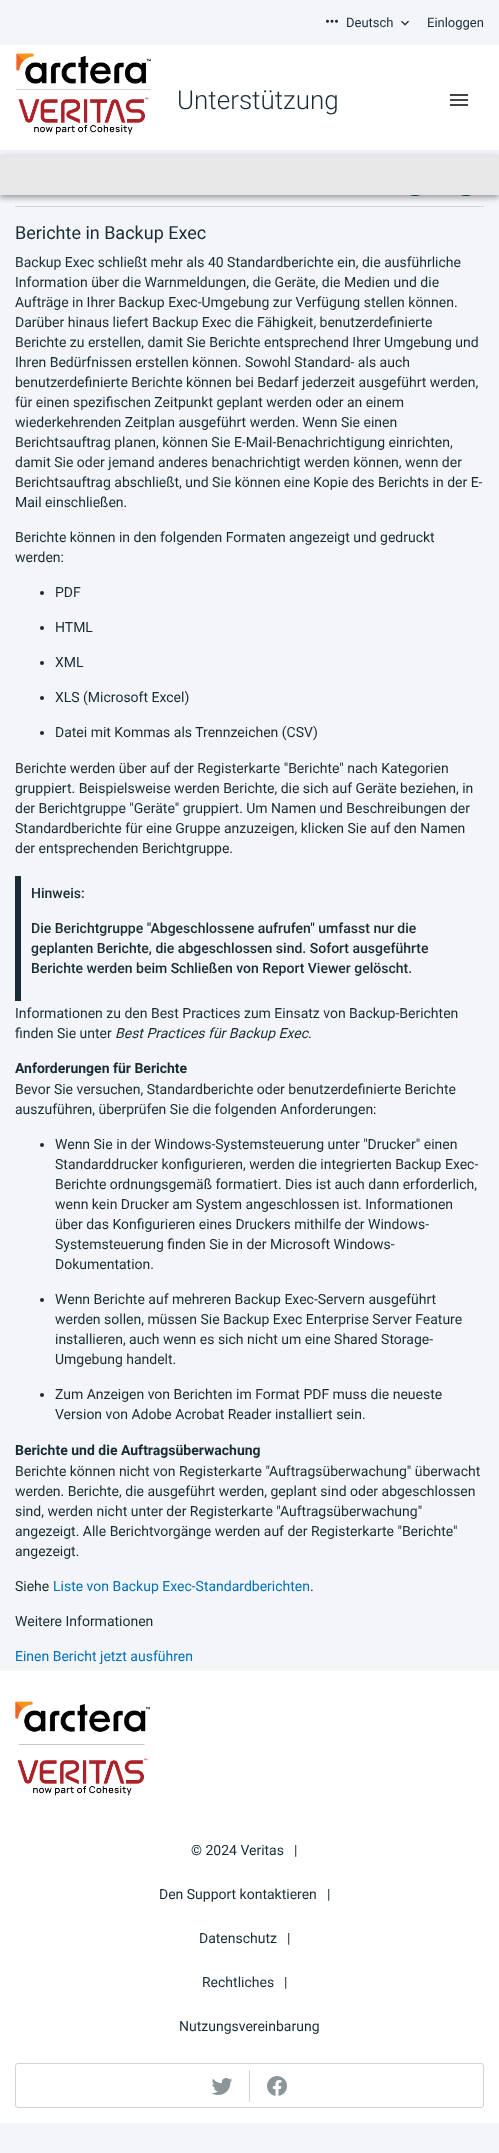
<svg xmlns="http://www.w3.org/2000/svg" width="499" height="2153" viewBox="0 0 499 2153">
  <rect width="100%" height="100%" fill="#f4f5f8"/>
  <image x="326" y="19" width="12" height="4" href="img/1.png"/>
  <image x="401" y="20" width="8" height="6" href="img/2.png"/>
  <path d="M15 206h469v1H15z" fill="#d5d5d5"/>
  <circle cx="415" cy="178" r="17.5" fill="none" stroke="#004677"/>
  <circle cx="466" cy="178" r="17.5" fill="none" stroke="#004677"/>
  <path d="M0 156h499v40H0z" fill="#0000001f" filter="blur(5px)"/>
  <path d="M0 45h499v105H0z" fill="#fff"/>
  <image x="16" y="53" width="135" height="31" href="img/3.png"/>
  <path d="M16 89h135v1H16z" fill="#d5d5d5"/>
  <image x="18" y="97" width="131" height="38" href="img/4.png"/>
  <image x="450" y="94" width="18" height="12" href="img/5.png"/>
  <path d="M0 159h499v40H0z" fill="#00000024" filter="blur(2.5px)"/>
  <path d="M1 158h497v38H1z" fill="#00000033" filter="blur(2px)"/>
  <path d="M0 155h499v40H0z" fill="#e7e7e7"/>
  <circle cx="42" cy="593" r="2" fill="#182c35"/>
  <circle cx="42" cy="628" r="2" fill="#182c35"/>
  <circle cx="42" cy="663" r="2" fill="#182c35"/>
  <circle cx="42" cy="698" r="2" fill="#182c35"/>
  <circle cx="42" cy="733" r="2" fill="#182c35"/>
  <path d="M15 876h6v125H15z" fill="#182c35"/>
  <circle cx="42" cy="1145" r="2" fill="#182c35"/>
  <circle cx="42" cy="1300" r="2" fill="#182c35"/>
  <circle cx="42" cy="1395" r="2" fill="#182c35"/>
  <path d="M0 1671h499v452H0z" fill="#fff"/>
  <image x="15" y="1701" width="135" height="44" href="img/6.png"/>
  <image x="17" y="1758" width="131" height="38" href="img/4.png"/>
  <rect x="15.5" y="2063.5" width="468" height="44" rx="2.5" fill="none" stroke="#d3d3d3"/>
  <path d="M249 2070h1v32H249z" fill="#d3d3d3"/>
  <image x="211" y="2078" width="22" height="17" href="img/7.png"/>
  <image x="267" y="2076" width="20" height="20" href="img/8.png"/>
  <g font-family="Roboto" font-size="13" fill="#182c35">
    <text x="346" y="27">Deutsch</text>
    <text x="427" y="27">Einloggen</text>
  </g>
  <text x="177" y="109" font-family="Roboto" font-size="26" font-weight="300" fill="#182c35">Unterstützung</text>
  <text x="15" y="239" font-family="Roboto" font-size="18" fill="#182c35">Berichte in Backup Exec</text>
  <g font-family="Roboto" font-size="14" fill="#182c35">
    <text x="15" y="267">Backup Exec schließt mehr als 40 Standardberichte ein, die ausführliche</text>
    <text x="15" y="287">Information über die Warnmeldungen, die Geräte, die Medien und die</text>
    <text x="15" y="307">Aufträge in Ihrer Backup Exec-Umgebung zur Verfügung stellen können.</text>
    <text x="15" y="327">Darüber hinaus liefert Backup Exec die Fähigkeit, benutzerdefinierte</text>
    <text x="15" y="347">Berichte zu erstellen, damit Sie Berichte entsprechend Ihrer Umgebung und</text>
    <text x="15" y="367">Ihren Bedürfnissen erstellen können. Sowohl Standard- als auch</text>
    <text x="15" y="387">benutzerdefinierte Berichte können bei Bedarf jederzeit ausgeführt werden,</text>
    <text x="15" y="407">für einen spezifischen Zeitpunkt geplant werden oder an einem</text>
    <text x="15" y="427">wiederkehrenden Zeitplan ausgeführt werden. Wenn Sie einen</text>
    <text x="15" y="447">Berichtsauftrag planen, können Sie E-Mail-Benachrichtigung einrichten,</text>
    <text x="15" y="467">damit Sie oder jemand anderes benachrichtigt werden können, wenn der</text>
    <text x="15" y="487">Berichtsauftrag abschließt, und Sie können eine Kopie des Berichts in der E-</text>
    <text x="15" y="507">Mail einschließen.</text>
    <text x="15" y="542">Berichte können in den folgenden Formaten angezeigt und gedruckt</text>
    <text x="15" y="562">werden:</text>
    <text x="55" y="597">PDF</text>
    <text x="55" y="632">HTML</text>
    <text x="55" y="667">XML</text>
    <text x="55" y="702">XLS (Microsoft Excel)</text>
    <text x="55" y="737">Datei mit Kommas als Trennzeichen (CSV)</text>
    <text x="15" y="773">Berichte werden über auf der Registerkarte "Berichte" nach Kategorien</text>
    <text x="15" y="793">gruppiert. Beispielsweise werden Berichte, die sich auf Geräte beziehen, in</text>
    <text x="15" y="813">der Berichtgruppe "Geräte" gruppiert. Um Namen und Beschreibungen der</text>
    <text x="15" y="833">Standardberichte für eine Gruppe anzuzeigen, klicken Sie auf den Namen</text>
    <text x="15" y="853">der entsprechenden Berichtgruppe.</text>
  </g>
  <g font-family="Roboto" font-size="14" font-weight="500" fill="#182c35">
    <text x="31" y="898">Hinweis:</text>
    <text x="31" y="933">Die Berichtgruppe "Abgeschlossene aufrufen" umfasst nur die</text>
    <text x="31" y="953">geplanten Berichte, die abgeschlossen sind. Sofort ausgeführte</text>
    <text x="31" y="973">Berichte werden beim Schließen von Report Viewer gelöscht.</text>
  </g>
  <g font-family="Roboto" font-size="14" fill="#182c35">
    <text x="15" y="1018">Informationen zu den Best Practices zum Einsatz von Backup-Berichten</text>
    <text x="15" y="1038">finden Sie unter</text>
  </g>
  <text x="115" y="1038" font-family="Roboto" font-size="14" font-style="italic" fill="#182c35">Best Practices für Backup Exec</text>
  <text x="308" y="1038" font-family="Roboto" font-size="14" fill="#182c35">.</text>
  <text x="15" y="1073" font-family="Roboto" font-size="14" font-weight="bold" fill="#182c35">Anforderungen für Berichte</text>
  <g font-family="Roboto" font-size="14" fill="#182c35">
    <text x="15" y="1094">Bevor Sie versuchen, Standardberichte oder benutzerdefinierte Berichte</text>
    <text x="15" y="1114">auszuführen, überprüfen Sie die folgenden Anforderungen:</text>
    <text x="55" y="1149">Wenn Sie in der Windows-Systemsteuerung unter "Drucker" einen</text>
    <text x="55" y="1169">Standarddrucker konfigurieren, werden die integrierten Backup Exec-</text>
    <text x="55" y="1189">Berichte ordnungsgemäß formatiert. Dies ist auch dann erforderlich,</text>
    <text x="55" y="1209">wenn kein Drucker am System angeschlossen ist. Informationen</text>
    <text x="55" y="1229">über das Konfigurieren eines Druckers mithilfe der Windows-</text>
    <text x="55" y="1249">Systemsteuerung finden Sie in der Microsoft Windows-</text>
    <text x="55" y="1269">Dokumentation.</text>
    <text x="55" y="1304">Wenn Berichte auf mehreren Backup Exec-Servern ausgeführt</text>
    <text x="55" y="1324">werden sollen, müssen Sie Backup Exec Enterprise Server Feature</text>
    <text x="55" y="1344">installieren, auch wenn es sich nicht um eine Shared Storage-</text>
    <text x="55" y="1364">Umgebung handelt.</text>
    <text x="55" y="1399">Zum Anzeigen von Berichten im Format PDF muss die neueste</text>
    <text x="55" y="1419">Version von Adobe Acrobat Reader installiert sein.</text>
  </g>
  <text x="15" y="1455" font-family="Roboto" font-size="14" font-weight="bold" fill="#182c35">Berichte und die Auftragsüberwachung</text>
  <g font-family="Roboto" font-size="14" fill="#182c35">
    <text x="15" y="1476">Berichte können nicht von Registerkarte "Auftragsüberwachung" überwacht</text>
    <text x="15" y="1496">werden. Berichte, die ausgeführt werden, geplant sind oder abgeschlossen</text>
    <text x="15" y="1516">sind, werden nicht unter der Registerkarte "Auftragsüberwachung"</text>
    <text x="15" y="1536">angezeigt. Alle Berichtvorgänge werden auf der Registerkarte "Berichte"</text>
    <text x="15" y="1556">angezeigt.</text>
    <text x="15" y="1591">Siehe</text>
  </g>
  <text x="53" y="1591" font-family="Roboto" font-size="14" fill="#0070bd">Liste von Backup Exec-Standardberichten</text>
  <g font-family="Roboto" font-size="14" fill="#182c35">
    <text x="310" y="1591">.</text>
    <text x="15" y="1626">Weitere Informationen</text>
  </g>
  <text x="15" y="1661" font-family="Roboto" font-size="14" fill="#0070bd">Einen Bericht jetzt ausführen</text>
  <g font-family="Roboto" font-size="14" fill="#182c35">
    <text x="191" y="1855">© 2024 Veritas</text>
    <text x="294" y="1855">|</text>
    <text x="159" y="1899">Den Support kontaktieren</text>
    <text x="327" y="1899">|</text>
    <text x="199" y="1943">Datenschutz</text>
    <text x="287" y="1943">|</text>
    <text x="202" y="1987">Rechtliches</text>
    <text x="284" y="1987">|</text>
    <text x="179" y="2031">Nutzungsvereinbarung</text>
  </g>
</svg>
